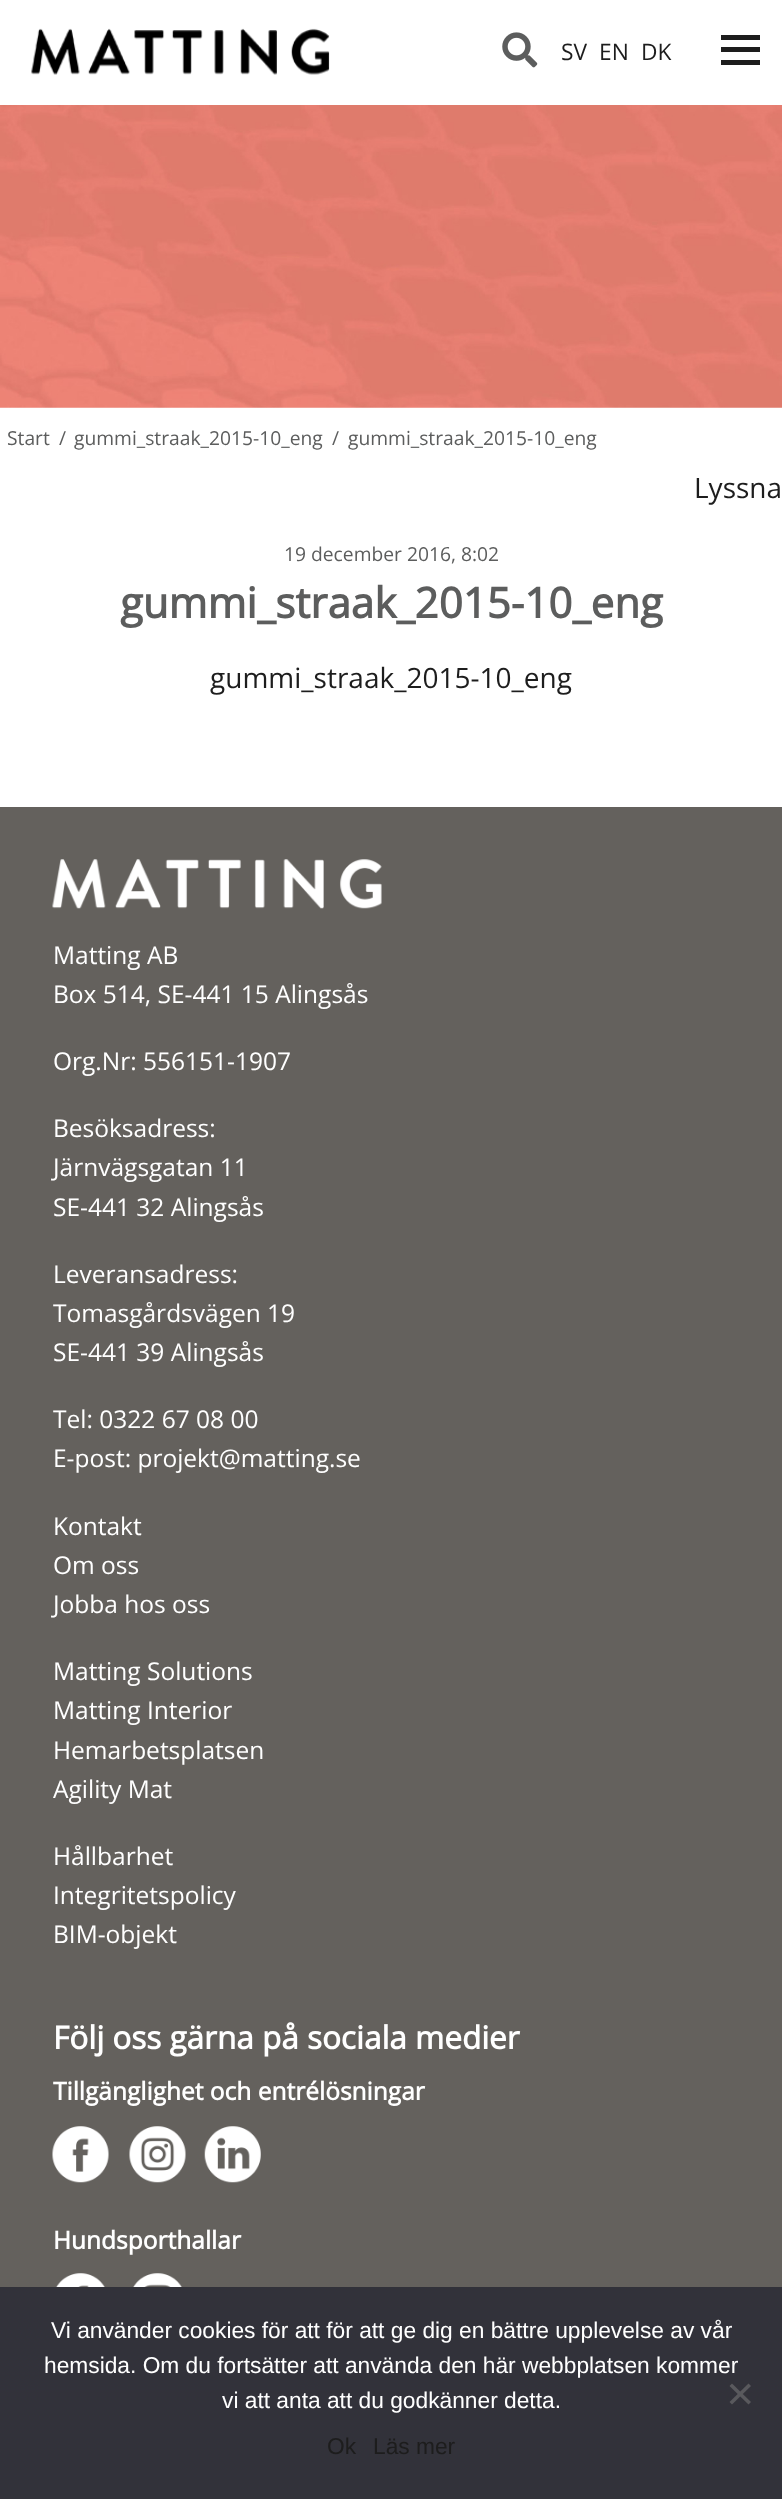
<svg xmlns="http://www.w3.org/2000/svg" width="782" height="2499" viewBox="0 0 782 2499">
  <rect width="100%" height="100%" fill="#fff"/>
  <image x="31" y="28" width="299" height="47" href="img/1.png"/>
  <image x="502" y="32" width="36" height="36" href="img/2.png"/>
  <path d="M721 47h39v5H721z" fill="#1d1d1d"/>
  <path d="M721 35h39v5H721z" fill="#1d1d1d"/>
  <path d="M721 60h39v5H721z" fill="#1d1d1d"/>
  <image x="0" y="105" width="782" height="303" href="img/3.png"/>
  <path d="M0 807h782v1480H0z" fill="#64615d"/>
  <image x="52" y="859" width="330" height="50" href="img/4.png"/>
  <image x="52" y="2126" width="57" height="57" href="img/5.png"/>
  <image x="129" y="2126" width="57" height="57" href="img/6.png"/>
  <image x="204" y="2126" width="57" height="57" href="img/7.png"/>
  <image x="56" y="2273" width="49" height="14" href="img/8.png"/>
  <image x="133" y="2273" width="49" height="14" href="img/9.png"/>
  <path d="M0 2287h782v212H0z" fill="#32323a"/>
  <path d="M748.5 2383.5L751 2386L732 2404.5L729.5 2402Z" fill="#59595d"/>
  <path d="M729.5 2386L732 2383.5L751 2402L748.5 2404.5Z" fill="#59595d"/>
  <g font-family="Open Sans" font-size="22.75" fill="#1d1d1d">
    <text x="561" y="60">SV</text>
    <text x="599" y="60">EN</text>
    <text x="641" y="60">DK</text>
  </g>
  <g font-family="Open Sans" font-size="19.25" fill="#5c5d5d">
    <text x="7" y="445">Start</text>
    <text x="59" y="445">/</text>
    <text x="74" y="445">gummi_straak_2015-10_eng</text>
    <text x="332" y="445">/</text>
    <text x="348" y="445">gummi_straak_2015-10_eng</text>
  </g>
  <text x="694" y="498" font-family="Open Sans" font-size="28" fill="#1d1d1d">Lyssna</text>
  <text x="284" y="561" font-family="Open Sans" font-size="19.25" fill="#5c5d5d">19 december 2016, 8:02</text>
  <text x="120" y="618" font-family="Open Sans" font-size="42" font-weight="bold" fill="#5c5d5d">gummi_straak_2015-10_eng</text>
  <text x="210" y="688" font-family="Open Sans" font-size="28" fill="#1d1d1d">gummi_straak_2015-10_eng</text>
  <g font-family="Open Sans" font-size="24.5" fill="#fff">
    <text x="53" y="964">Matting AB</text>
    <text x="53" y="1003">Box 514, SE-441 15 Alingsås</text>
    <text x="53" y="1070">Org.Nr: 556151-1907</text>
    <text x="53" y="1137">Besöksadress:</text>
    <text x="53" y="1176">Järnvägsgatan 11</text>
    <text x="53" y="1216">SE-441 32 Alingsås</text>
    <text x="53" y="1283">Leveransadress:</text>
    <text x="53" y="1322">Tomasgårdsvägen 19</text>
    <text x="53" y="1361">SE-441 39 Alingsås</text>
    <text x="53" y="1428">Tel: 0322 67 08 00</text>
    <text x="53" y="1467">E-post: projekt@matting.se</text>
    <text x="53" y="1535">Kontakt</text>
    <text x="53" y="1574">Om oss</text>
    <text x="53" y="1613">Jobba hos oss</text>
    <text x="53" y="1680">Matting Solutions</text>
    <text x="53" y="1719">Matting Interior</text>
    <text x="53" y="1759">Hemarbetsplatsen</text>
    <text x="53" y="1798">Agility Mat</text>
    <text x="53" y="1865">Hållbarhet</text>
    <text x="53" y="1904">Integritetspolicy</text>
    <text x="53" y="1943">BIM-objekt</text>
  </g>
  <text x="53" y="2049" font-family="Open Sans" font-size="31.5" font-weight="bold" fill="#fff">Följ oss gärna på sociala medier</text>
  <g font-family="Open Sans" font-size="24.5" font-weight="bold" fill="#fff">
    <text x="53" y="2100">Tillgänglighet och entrélösningar</text>
    <text x="53" y="2249">Hundsporthallar</text>
  </g>
  <g font-family="Liberation Sans" font-size="22.75" fill="#fff">
    <text x="51" y="2338">Vi använder cookies för att för att ge dig en bättre upplevelse av vår</text>
    <text x="44" y="2373">hemsida. Om du fortsätter att använda den här webbplatsen kommer</text>
    <text x="222" y="2408">vi att anta att du godkänner detta.</text>
  </g>
  <g font-family="Liberation Sans" font-size="22.75" fill="#1d1d1d">
    <text x="327" y="2454">Ok</text>
    <text x="373" y="2454">Läs mer</text>
  </g>
</svg>
